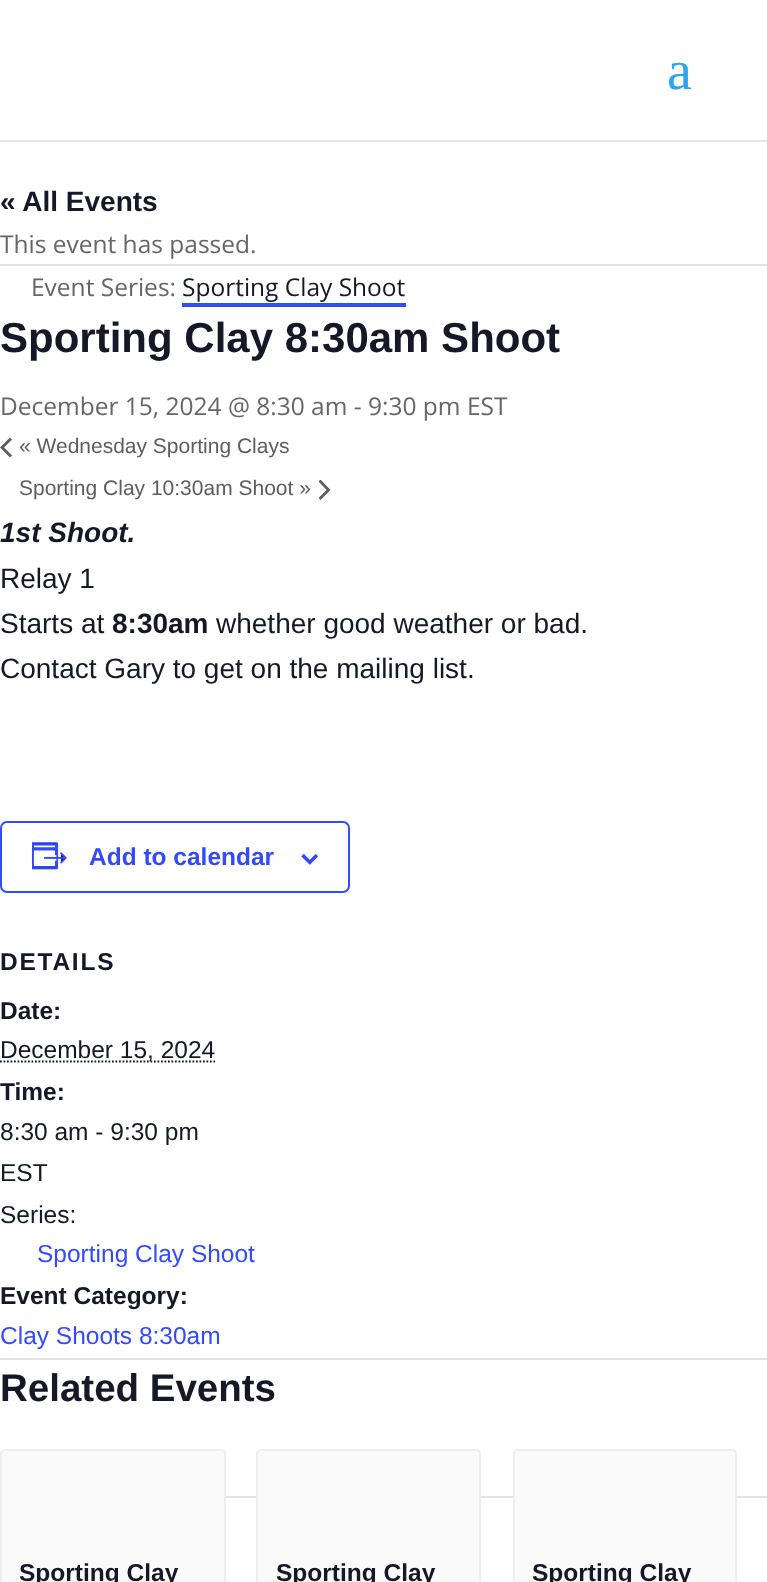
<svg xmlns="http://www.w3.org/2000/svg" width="767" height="1582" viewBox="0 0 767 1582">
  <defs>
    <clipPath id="clip1"><path d="M319 480h12v21H319z"/></clipPath>
  </defs>
  <rect width="100%" height="100%" fill="#fff"/>
  <path d="M0 140h767v2H0z" fill="#e6e6e6"/>
  <path d="M0 264h767v2H0z" fill="#e4e4e4"/>
  <path d="M182 303h224v4H182z" fill="#334aff"/>
  <path d="M12 455.5L10 457.5L0 447.5L10 437.5L12 439.5L4 447.5Z" fill="#5d5d5d"/>
  <g clip-path="url(#clip1)">
    <path d="M318.5 481.5L320.5 479.5L330.5 490L320.5 500L318.5 498L326.5 490Z" fill="#5d5d5d"/>
  </g>
  <rect x="1" y="822" width="348" height="70" rx="6" fill="none" stroke="#334aff" stroke-width="2"/>
  <image x="32" y="842" width="35" height="28" href="img/1.png"/>
  <image x="301" y="854" width="18" height="11" href="img/2.png"/>
  <path d="M0 1061.5H215" fill="none" stroke="#141827" stroke-width="1.8" stroke-dasharray="1.75 1.75"/>
  <path d="M0 1358h767v2H0z" fill="#e4e4e4"/>
  <rect x="1" y="1450" width="224" height="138" rx="4" fill="#fafafa" stroke="#eee" stroke-width="2"/>
  <path d="M226 1496h541v2H226z" fill="#e4e4e4"/>
  <rect x="257" y="1450" width="223" height="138" rx="4" fill="#fafafa" stroke="#eee" stroke-width="2"/>
  <rect x="514" y="1450" width="222" height="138" rx="4" fill="#fafafa" stroke="#eee" stroke-width="2"/>
  <text x="667" y="89" font-family="Liberation Serif" font-size="56" fill="#2ea3f2">a</text>
  <text x="0" y="211" font-family="Liberation Sans" font-size="28" font-weight="bold" fill="#141827">« All Events</text>
  <g font-family="Open Sans" font-size="24.5" fill="#666">
    <text x="0" y="253">This event has passed.</text>
    <text x="31" y="296">Event Series:</text>
  </g>
  <text x="182" y="296" font-family="Open Sans" font-size="24.5" fill="#141827">Sporting Clay Shoot</text>
  <text x="0" y="352" font-family="Liberation Sans" font-size="42" font-weight="bold" fill="#141827">Sporting Clay 8:30am Shoot</text>
  <text x="0" y="415" font-family="Open Sans" font-size="24.5" fill="#666">December 15, 2024 @ 8:30 am - 9:30 pm EST</text>
  <g font-family="Liberation Sans" font-size="21" fill="#5d5d5d">
    <text x="19" y="453">« Wednesday Sporting Clays</text>
    <text x="19" y="495">Sporting Clay 10:30am Shoot »</text>
  </g>
  <text x="0" y="542" font-family="Liberation Sans" font-size="28" font-weight="bold" font-style="italic" fill="#141827">1st Shoot.</text>
  <g font-family="Liberation Sans" font-size="28" fill="#141827">
    <text x="0" y="588">Relay 1</text>
    <text x="0" y="633">Starts at</text>
  </g>
  <text x="112" y="633" font-family="Liberation Sans" font-size="28" font-weight="bold" fill="#141827">8:30am</text>
  <g font-family="Liberation Sans" font-size="28" fill="#141827">
    <text x="216" y="633">whether good weather or bad.</text>
    <text x="0" y="678">Contact Gary to get on the mailing list.</text>
  </g>
  <text x="89" y="865" font-family="Liberation Sans" font-size="24.5" font-weight="bold" fill="#334aff">Add to calendar</text>
  <text x="0" y="970" font-family="Liberation Sans" font-size="24.5" font-weight="bold" letter-spacing="1.75" fill="#141827">DETAILS</text>
  <text x="0" y="1019" font-family="Liberation Sans" font-size="24.5" font-weight="bold" fill="#141827">Date:</text>
  <text x="0" y="1058" font-family="Liberation Sans" font-size="24.5" fill="#141827">December 15, 2024</text>
  <text x="0" y="1100" font-family="Liberation Sans" font-size="24.5" font-weight="bold" fill="#141827">Time:</text>
  <g font-family="Liberation Sans" font-size="24.5" fill="#141827">
    <text x="0" y="1140">8:30 am - 9:30 pm</text>
    <text x="0" y="1181">EST</text>
    <text x="0" y="1223">Series:</text>
  </g>
  <text x="37" y="1262" font-family="Liberation Sans" font-size="24.5" fill="#334aff">Sporting Clay Shoot</text>
  <text x="0" y="1304" font-family="Liberation Sans" font-size="24.5" font-weight="bold" fill="#141827">Event Category:</text>
  <text x="0" y="1344" font-family="Liberation Sans" font-size="24.5" fill="#334aff">Clay Shoots 8:30am</text>
  <text x="0" y="1401" font-family="Liberation Sans" font-size="38.5" font-weight="bold" fill="#141827">Related Events</text>
  <g font-family="Liberation Sans" font-size="24.5" font-weight="bold" fill="#141827">
    <text x="19" y="1581">Sporting Clay</text>
    <text x="276" y="1581">Sporting Clay</text>
    <text x="532" y="1581">Sporting Clay</text>
  </g>
</svg>
